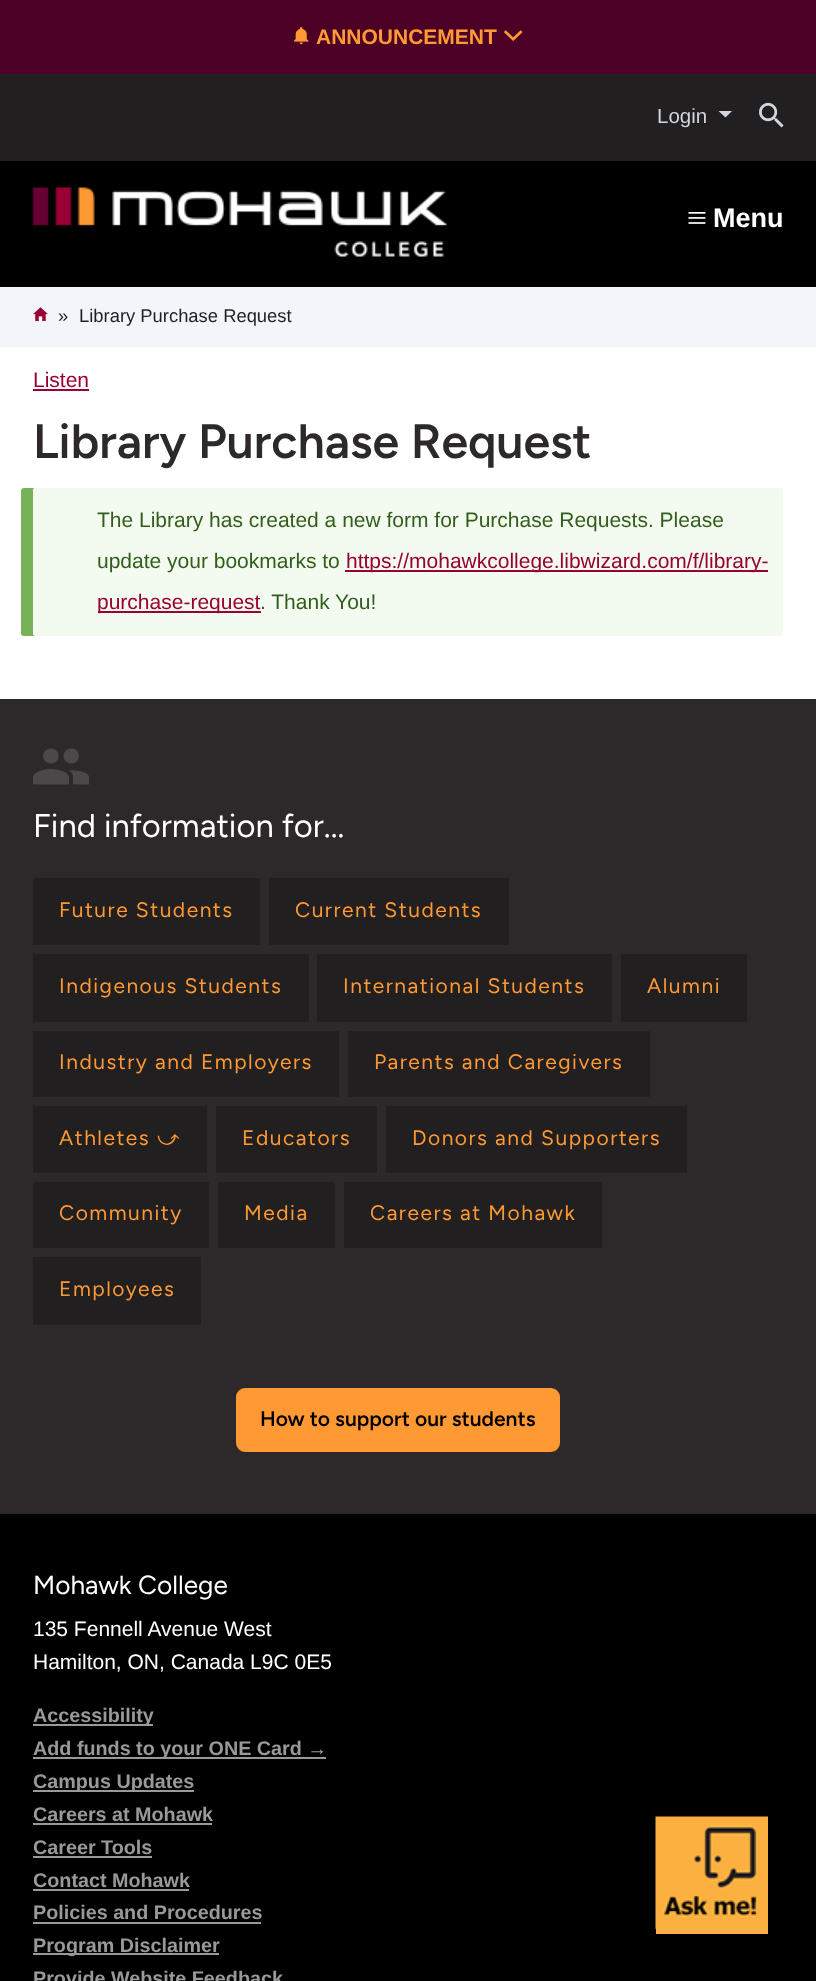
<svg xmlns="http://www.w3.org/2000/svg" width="816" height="1981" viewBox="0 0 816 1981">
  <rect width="100%" height="100%" fill="#fff"/>
  <path d="M0 0h816v74H0z" fill="#4d0026"/>
  <image x="294" y="27" width="15" height="18" href="img/1.png"/>
  <image x="504" y="30" width="19" height="11" href="img/2.png"/>
  <path d="M0 161h816v126H0z" fill="#000"/>
  <path d="M0 74h816v87H0z" fill="#211f20"/>
  <path d="M718.5 111H732L725.5 117.5Z" fill="#d2d6e0"/>
  <image x="759" y="102" width="25" height="26" href="img/3.png"/>
  <image x="32" y="187" width="415" height="70" href="img/4.png"/>
  <image x="688" y="212" width="18" height="12" href="img/5.png"/>
  <path d="M0 287h816v60H0z" fill="#f2f5fa"/>
  <image x="33" y="307" width="15" height="14" href="img/6.png"/>
  <path d="M33 389h56v2H33z" fill="#903"/>
  <path d="M24 488C22 488 21 489 21 491V633C21 635 22 636 24 636H36C34 636 33 635 33 633V490C33 489 34 489 34 488Z" fill="#77b259"/>
  <rect x="33" y="488" width="750" height="148" rx="3" fill="#f3faef"/>
  <path d="M345 570h423v2H345z" fill="#903"/>
  <path d="M98 611h163v2H98z" fill="#903"/>
  <path d="M0 699h816v815H0z" fill="#2d292a"/>
  <image x="33" y="748" width="56" height="37" href="img/7.png"/>
  <path d="M33 878h227v67H33z" fill="#211f20"/>
  <path d="M269 878h240v67H269z" fill="#211f20"/>
  <path d="M33 954h276v68H33z" fill="#211f20"/>
  <path d="M317 954h295v68H317z" fill="#211f20"/>
  <path d="M621 954h126v68H621z" fill="#211f20"/>
  <path d="M33 1031h306v66H33z" fill="#211f20"/>
  <path d="M348 1031h302v66H348z" fill="#211f20"/>
  <path d="M33 1106h174v67H33z" fill="#211f20"/>
  <path d="M216 1106h161v67H216z" fill="#211f20"/>
  <path d="M386 1106h301v67H386z" fill="#211f20"/>
  <path d="M33 1182h176v66H33z" fill="#211f20"/>
  <path d="M218 1182h117v66H218z" fill="#211f20"/>
  <path d="M344 1182h258v66H344z" fill="#211f20"/>
  <path d="M33 1257h168v68H33z" fill="#211f20"/>
  <rect x="237.5" y="1389.5" width="321" height="61" rx="7.5" fill="#f93" stroke="#f93" stroke-width="3"/>
  <path d="M0 1514h816v467H0z" fill="#000"/>
  <path d="M33 1724h120v2H33z" fill="#999"/>
  <path d="M33 1757h293v2H33z" fill="#999"/>
  <path d="M33 1790h161v2H33z" fill="#999"/>
  <path d="M33 1823h179v2H33z" fill="#999"/>
  <path d="M33 1856h119v2H33z" fill="#999"/>
  <path d="M33 1889h156v2H33z" fill="#999"/>
  <path d="M33 1922h228v2H33z" fill="#999"/>
  <path d="M33 1953h186v2H33z" fill="#999"/>
  <path d="M656 1929h112v5H656z" fill="#faaf4b"/>
  <image x="655" y="1816" width="113" height="113" href="img/8.png"/>
  <text x="316" y="44" font-family="Liberation Sans" font-size="21" font-weight="bold" fill="#f93">ANNOUNCEMENT</text>
  <text x="657" y="123" font-family="Liberation Sans" font-size="20.5" fill="#d2d6e0">Login</text>
  <text x="713" y="227" font-family="Liberation Sans" font-size="27" font-weight="bold" fill="#fff">Menu</text>
  <g font-family="Liberation Sans" font-size="18.4" fill="#211f20">
    <text x="58" y="322">»</text>
    <text x="79" y="322">Library Purchase Request</text>
  </g>
  <text x="33" y="387" font-family="Liberation Sans" font-size="21" fill="#903">Listen</text>
  <text x="33" y="458" font-family="Figtree" font-size="48.25" font-weight="600" fill="#2d292a">Library Purchase Request</text>
  <g font-family="Liberation Sans" font-size="21" fill="#325e1c">
    <text x="97" y="527">The Library has created a new form for Purchase Requests. Please</text>
    <text x="97" y="568">update your bookmarks to</text>
  </g>
  <g font-family="Liberation Sans" font-size="21" fill="#903">
    <text x="346" y="568">https://mohawkcollege.libwizard.com/f/library-</text>
    <text x="97" y="609">purchase-request</text>
  </g>
  <text x="260" y="609" font-family="Liberation Sans" font-size="21" fill="#325e1c">. Thank You!</text>
  <text x="33" y="837" font-family="Figtree" font-size="32.75" fill="#fff">Find information for...</text>
  <g font-family="Figtree" font-size="21" letter-spacing="1.5" fill="#f93">
    <text x="59" y="917">Future Students</text>
    <text x="295" y="917">Current Students</text>
    <text x="59" y="993">Indigenous Students</text>
    <text x="343" y="993">International Students</text>
    <text x="647" y="993">Alumni</text>
    <text x="59" y="1069">Industry and Employers</text>
    <text x="374" y="1069">Parents and Caregivers</text>
    <text x="59" y="1145">Athletes</text>
  </g>
  <text x="157" y="1145" font-family="FreeSerif" font-size="21" letter-spacing="1.5" fill="#f93">⤻</text>
  <g font-family="Figtree" font-size="21" letter-spacing="1.5" fill="#f93">
    <text x="242" y="1145">Educators</text>
    <text x="412" y="1145">Donors and Supporters</text>
    <text x="59" y="1220">Community</text>
    <text x="244" y="1220">Media</text>
    <text x="370" y="1220">Careers at Mohawk</text>
    <text x="59" y="1296">Employees</text>
  </g>
  <text x="260" y="1426" font-family="Figtree" font-size="21" font-weight="600" fill="#000">How to support our students</text>
  <text x="33" y="1594" font-family="Figtree" font-size="26.25" fill="#fff">Mohawk College</text>
  <g font-family="Liberation Sans" font-size="21" fill="#fff">
    <text x="33" y="1636">135 Fennell Avenue West</text>
    <text x="33" y="1669">Hamilton, ON, Canada L9C 0E5</text>
  </g>
  <g font-family="Liberation Sans" font-size="19.75" font-weight="bold" fill="#999">
    <text x="33" y="1722">Accessibility</text>
    <text x="33" y="1755">Add funds to your ONE Card →</text>
    <text x="33" y="1788">Campus Updates</text>
    <text x="33" y="1821">Careers at Mohawk</text>
    <text x="33" y="1854">Career Tools</text>
    <text x="33" y="1887">Contact Mohawk</text>
    <text x="33" y="1919">Policies and Procedures</text>
    <text x="33" y="1952">Program Disclaimer</text>
    <text x="33" y="1985">Provide Website Feedback</text>
  </g>
</svg>
